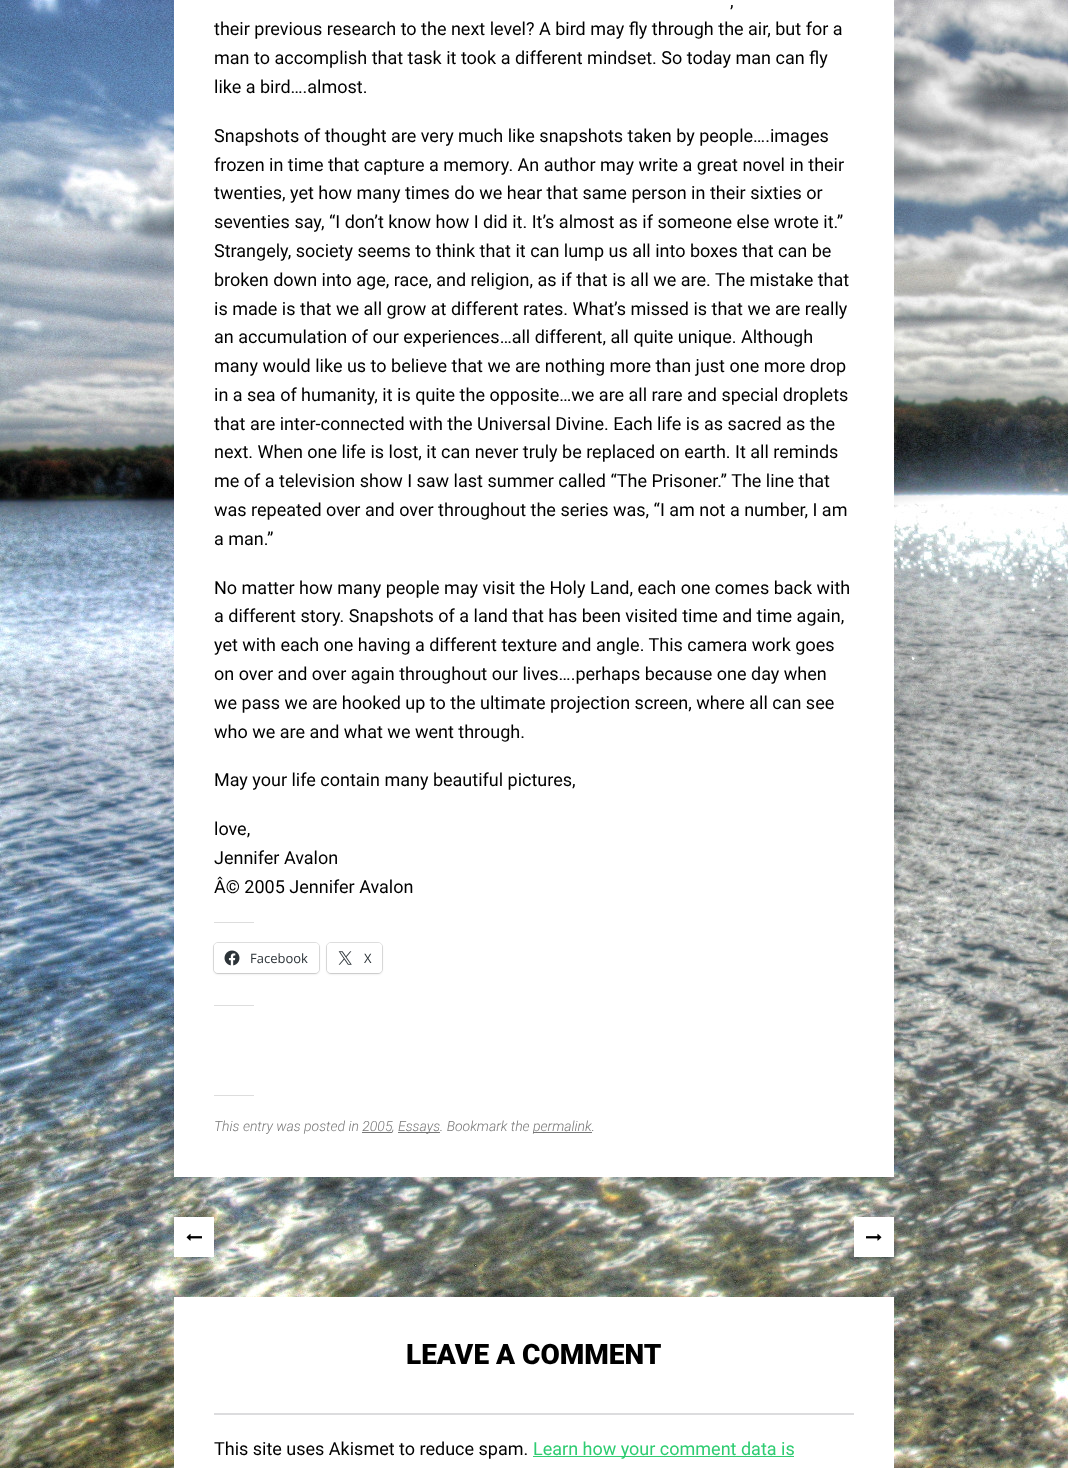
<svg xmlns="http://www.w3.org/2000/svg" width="1068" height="1468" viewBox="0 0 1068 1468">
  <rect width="100%" height="100%" fill="#fff"/>
  <image x="0" y="0" width="1068" height="1468" href="img/1.png"/>
  <path d="M174 0h720v1177H174z" fill="#fff"/>
  <path d="M214 922h40v1H214z" fill="#ddd"/>
  <rect x="213.5" y="942.5" width="106" height="31" rx="4.5" fill="none" stroke="#e0e0e0"/>
  <rect x="214" y="944" width="105" height="30" rx="4" fill="#0000001f" filter="blur(1px)"/>
  <rect x="214" y="943" width="105" height="30" rx="4" fill="#fff"/>
  <image x="224" y="950" width="16" height="16" href="img/2.png"/>
  <rect x="326.5" y="942.5" width="56" height="31" rx="4.5" fill="none" stroke="#e0e0e0"/>
  <rect x="327" y="944" width="55" height="30" rx="4" fill="#0000001f" filter="blur(1px)"/>
  <rect x="327" y="943" width="55" height="30" rx="4" fill="#fff"/>
  <image x="338" y="951" width="14" height="14" href="img/3.png"/>
  <path d="M214 1005h40v1H214z" fill="#ddd"/>
  <path d="M214 1095h40v1H214z" fill="#ddd"/>
  <path d="M398 1132h42v1H398z" fill="#777"/>
  <path d="M533 1132h59v1H533z" fill="#777"/>
  <path d="M362 1132h30v1H362z" fill="#777"/>
  <path d="M174 1217h40v40H174z" fill="#fff"/>
  <image x="186" y="1233" width="16" height="8" href="img/4.png"/>
  <path d="M854 1217h40v40H854z" fill="#fff"/>
  <image x="866" y="1233" width="16" height="8" href="img/5.png"/>
  <path d="M174 1297h720v171H174z" fill="#fff"/>
  <path d="M214 1413h640v2H214z" fill="#dcdcde"/>
  <path d="M533 1456h261v1H533z" fill="#2ecc71"/>
  <g font-family="Roboto" font-size="18" fill="#000">
    <text x="730" y="7">,</text>
    <text x="214" y="35">their previous research to the next level? A bird may fly through the air, but for a</text>
    <text x="214" y="64">man to accomplish that task it took a different mindset. So today man can fly</text>
    <text x="214" y="93">like a bird….almost.</text>
    <text x="214" y="142">Snapshots of thought are very much like snapshots taken by people….images</text>
    <text x="214" y="171">frozen in time that capture a memory. An author may write a great novel in their</text>
    <text x="214" y="199">twenties, yet how many times do we hear that same person in their sixties or</text>
    <text x="214" y="228">seventies say, “I don’t know how I did it. It’s almost as if someone else wrote it.”</text>
    <text x="214" y="257">Strangely, society seems to think that it can lump us all into boxes that can be</text>
    <text x="214" y="286">broken down into age, race, and religion, as if that is all we are. The mistake that</text>
    <text x="214" y="315">is made is that we all grow at different rates. What’s missed is that we are really</text>
    <text x="214" y="343">an accumulation of our experiences…all different, all quite unique. Although</text>
    <text x="214" y="372">many would like us to believe that we are nothing more than just one more drop</text>
    <text x="214" y="401">in a sea of humanity, it is quite the opposite…we are all rare and special droplets</text>
    <text x="214" y="430">that are inter-connected with the Universal Divine. Each life is as sacred as the</text>
    <text x="214" y="458">next. When one life is lost, it can never truly be replaced on earth. It all reminds</text>
    <text x="214" y="487">me of a television show I saw last summer called “The Prisoner.” The line that</text>
    <text x="214" y="516">was repeated over and over throughout the series was, “I am not a number, I am</text>
    <text x="214" y="545">a man.”</text>
    <text x="214" y="594">No matter how many people may visit the Holy Land, each one comes back with</text>
    <text x="214" y="622">a different story. Snapshots of a land that has been visited time and time again,</text>
    <text x="214" y="651">yet with each one having a different texture and angle. This camera work goes</text>
    <text x="214" y="680">on over and over again throughout our lives….perhaps because one day when</text>
    <text x="214" y="709">we pass we are hooked up to the ultimate projection screen, where all can see</text>
    <text x="214" y="738">who we are and what we went through.</text>
    <text x="214" y="786">May your life contain many beautiful pictures,</text>
    <text x="214" y="835">love,</text>
    <text x="214" y="864">Jennifer Avalon</text>
    <text x="214" y="893">Â© 2005 Jennifer Avalon</text>
  </g>
  <g font-family="Open Sans" font-size="13" fill="#2c3338">
    <text x="250" y="963">Facebook</text>
    <text x="364" y="963">X</text>
  </g>
  <g font-family="Roboto" font-size="14" font-weight="300" font-style="italic" fill="#777">
    <text x="214" y="1131">This entry was posted in 2005</text>
    <text x="398" y="1131">Essays. Bookmark the</text>
    <text x="533" y="1131">permalink.</text>
    <text x="392" y="1131">,</text>
  </g>
  <text x="406" y="1364" font-family="Roboto" font-size="28" font-weight="900" fill="#000">LEAVE A COMMENT</text>
  <text x="214" y="1455" font-family="Roboto" font-size="18" fill="#000">This site uses Akismet to reduce spam.</text>
  <text x="533" y="1455" font-family="Roboto" font-size="18" fill="#2ecc71">Learn how your comment data is</text>
</svg>
